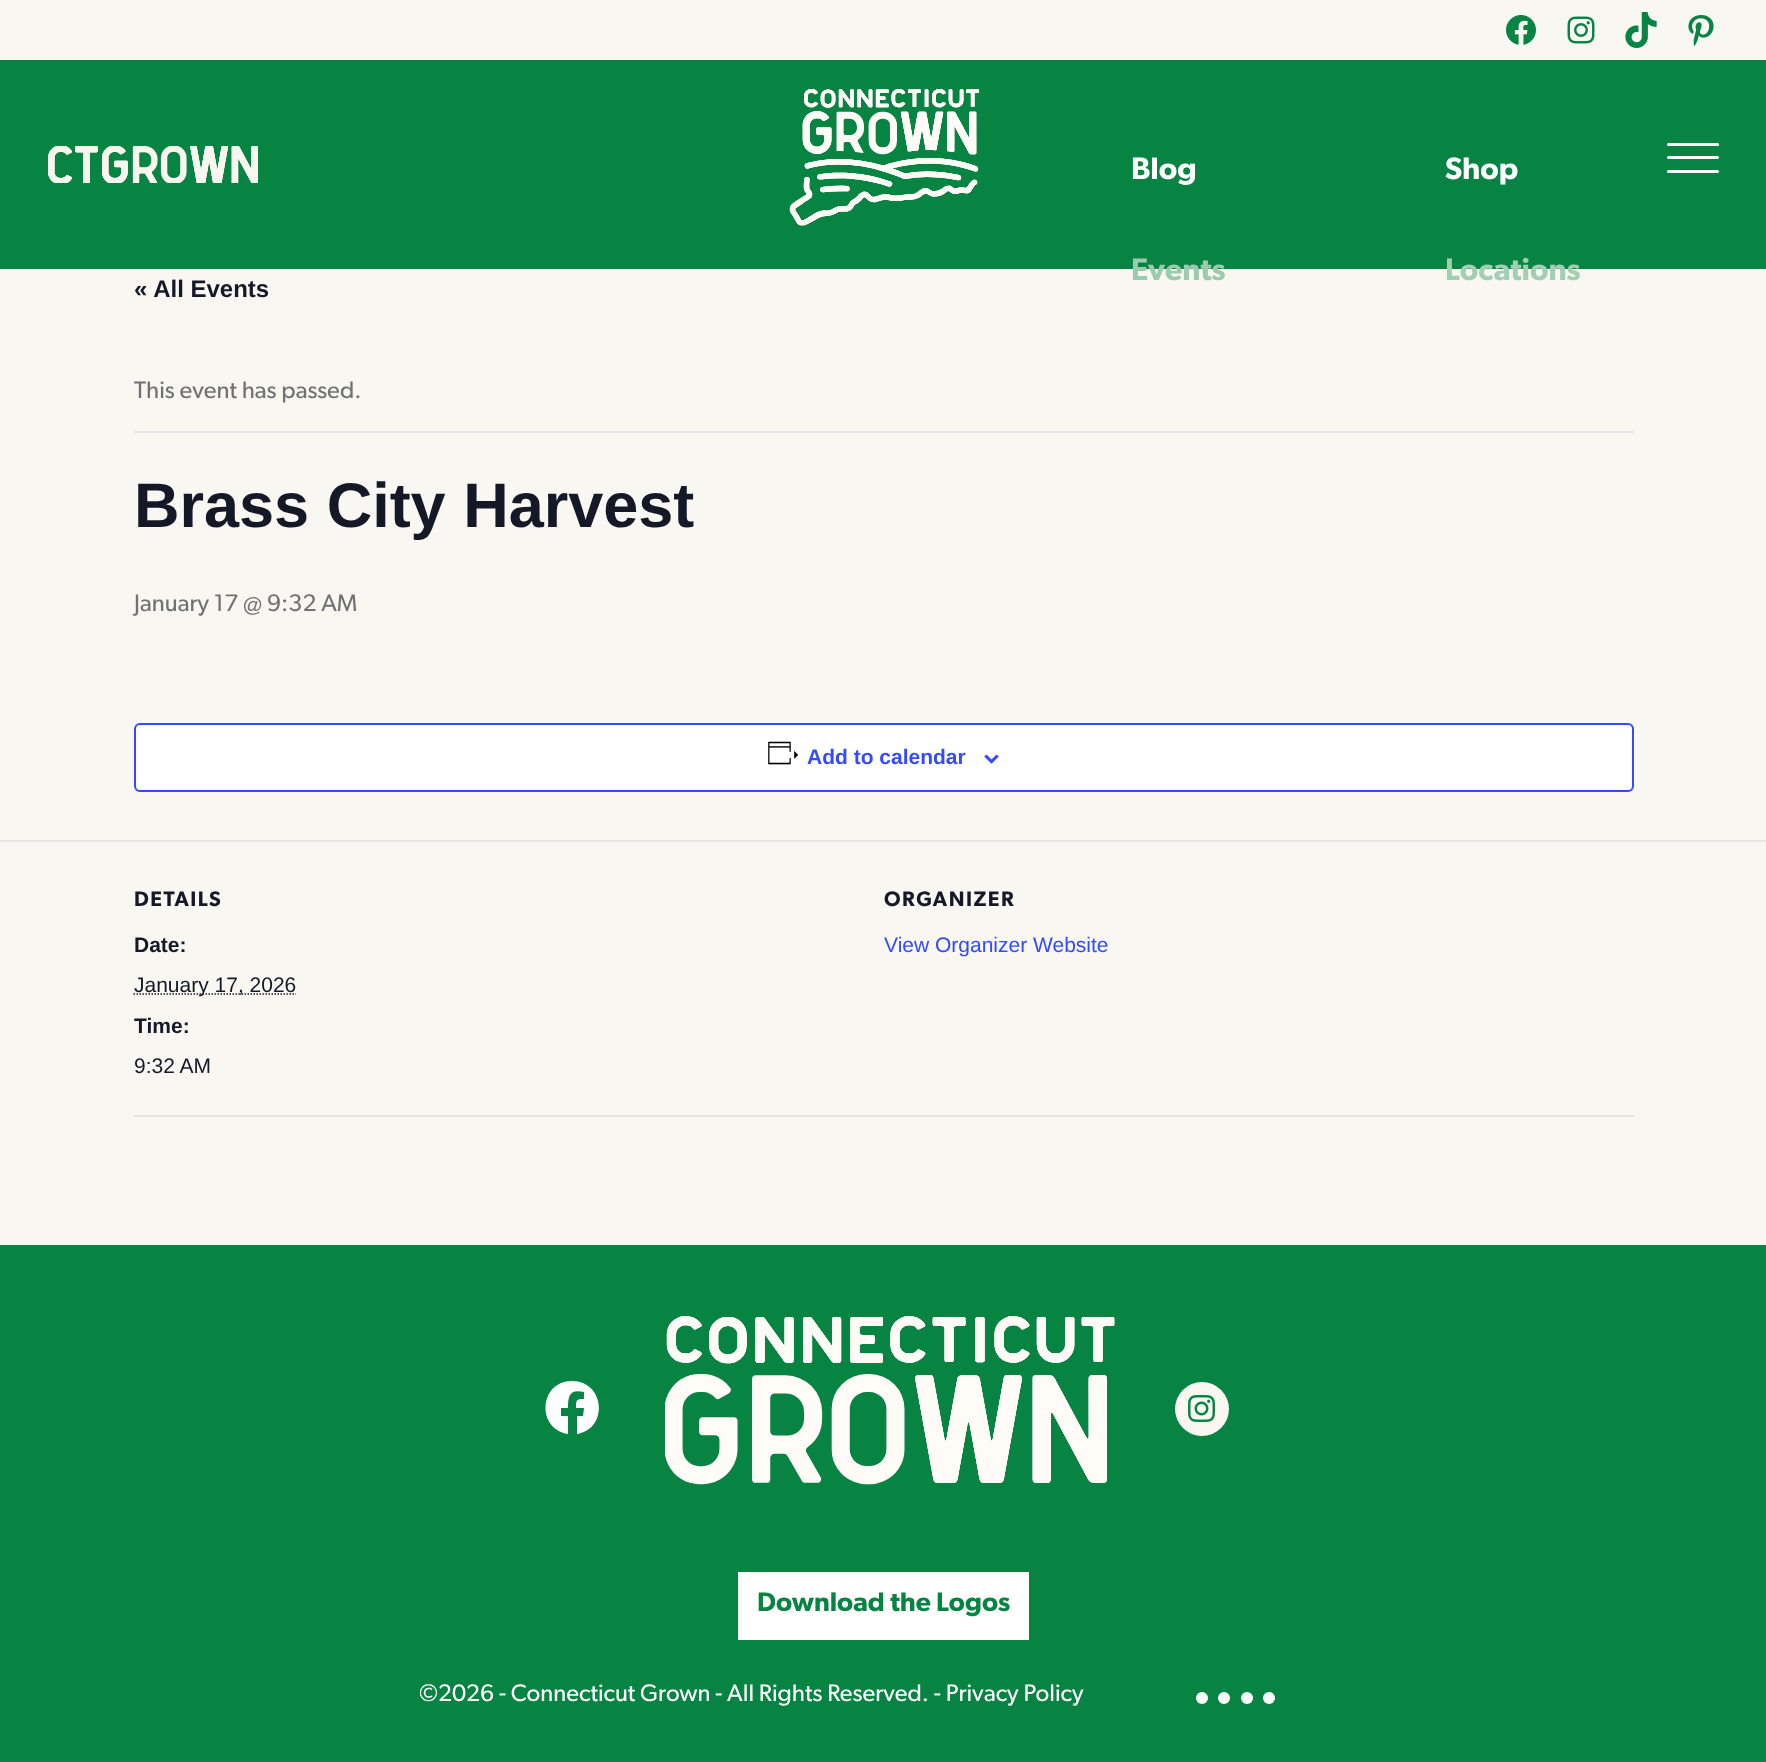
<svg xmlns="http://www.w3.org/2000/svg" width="1766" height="1762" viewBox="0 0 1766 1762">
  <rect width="100%" height="100%" fill="#f8f7f2"/>
  <image x="1506" y="15" width="30" height="30" href="img/1.png"/>
  <image x="1567" y="16" width="28" height="28" href="img/2.png"/>
  <image x="1625" y="12" width="32" height="36" href="img/3.png"/>
  <image x="1688" y="15" width="26" height="32" href="img/4.png"/>
  <path d="M0 60h1766v209H0z" fill="#078342"/>
  <image x="48" y="146" width="210" height="37" href="img/5.png"/>
  <image x="789" y="89" width="191" height="137" href="img/6.png"/>
  <rect x="1667" y="143" width="52" height="3" rx="1.5" fill="#fff"/>
  <rect x="1667" y="156" width="52" height="3" rx="1.5" fill="#fff"/>
  <rect x="1667" y="170" width="52" height="3" rx="1.5" fill="#fff"/>
  <path d="M134 431h1500v2H134z" fill="#e4e4e4"/>
  <rect x="135" y="724" width="1498" height="67" rx="5" fill="#fff" stroke="#334aff" stroke-width="2"/>
  <image x="768" y="741" width="31" height="24" href="img/7.png"/>
  <image x="984" y="755" width="15" height="9" href="img/8.png"/>
  <path d="M0 840h1766v2H0z" fill="#e4e4e4"/>
  <path d="M133.5 994H296" fill="none" stroke="#141827" stroke-width="1.5" stroke-dasharray="1.5 1.5"/>
  <path d="M134 1115h1500v2H134z" fill="#e4e4e4"/>
  <path d="M0 1245h1766v517H0z" fill="#078342"/>
  <path d="M572 1381C539 1381 536 1429 568 1434V1416H561V1408H568C568 1395 570 1389 584 1392V1399C576 1399 576 1400 576 1408H584L583 1416H577V1434C609 1429 605 1381 572 1381Z" fill="#fff"/>
  <image x="665" y="1316" width="450" height="169" href="img/9.png"/>
  <circle cx="1202" cy="1409" r="27" fill="#f8f7f2"/>
  <image x="1188" y="1395" width="27" height="27" href="img/10.png"/>
  <path d="M738 1572h291v68H738z" fill="#fff"/>
  <circle cx="1202" cy="1698" r="6" fill="#fff"/>
  <circle cx="1224" cy="1698" r="6" fill="#fff"/>
  <circle cx="1247" cy="1698" r="6" fill="#fff"/>
  <circle cx="1269" cy="1698" r="6" fill="#fff"/>
  <g font-family="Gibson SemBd" font-size="31" font-weight="600" fill="#fff">
    <text x="1131" y="179">Blog</text>
    <text x="1445" y="179">Shop</text>
  </g>
  <text x="1131" y="280" font-family="Gibson SemBd" font-size="31" font-weight="600" fill="#9bcaae">Events</text>
  <text x="1445" y="280" font-family="Gibson SemBd" font-size="31" font-weight="600" fill="#a2ceb4">Locations</text>
  <text x="134" y="297" font-family="Liberation Sans" font-size="24" font-weight="bold" fill="#141827">« All Events</text>
  <text x="134" y="398" font-family="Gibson" font-size="24" fill="#707372">This event has passed.</text>
  <text x="134" y="527" font-family="Liberation Sans" font-size="63" font-weight="bold" fill="#141827">Brass City Harvest</text>
  <text x="134" y="611" font-family="Gibson" font-size="24" fill="#707372">January 17 @ 9:32 AM</text>
  <text x="807" y="764" font-family="Liberation Sans" font-size="21" font-weight="bold" fill="#334aff">Add to calendar</text>
  <text x="134" y="906" font-family="Gibson SemBd" font-size="21" font-weight="600" letter-spacing="1.5" fill="#141827">DETAILS</text>
  <text x="134" y="952" font-family="Liberation Sans" font-size="21" font-weight="bold" fill="#141827">Date:</text>
  <text x="134" y="992" font-family="Liberation Sans" font-size="21" fill="#141827">January 17, 2026</text>
  <text x="134" y="1033" font-family="Liberation Sans" font-size="21" font-weight="bold" fill="#141827">Time:</text>
  <text x="134" y="1073" font-family="Liberation Sans" font-size="21" fill="#141827">9:32 AM</text>
  <text x="884" y="906" font-family="Gibson SemBd" font-size="21" font-weight="600" letter-spacing="1.5" fill="#141827">ORGANIZER</text>
  <text x="884" y="952" font-family="Liberation Sans" font-size="21" fill="#334aff">View Organizer Website</text>
  <text x="757" y="1611" font-family="Gibson SemBd" font-size="27" font-weight="600" fill="#078342">Download the Logos</text>
  <text x="419" y="1701" font-family="Gibson" font-size="24" fill="#fff">©2026 - Connecticut Grown - All Rights Reserved. - Privacy Policy</text>
</svg>
